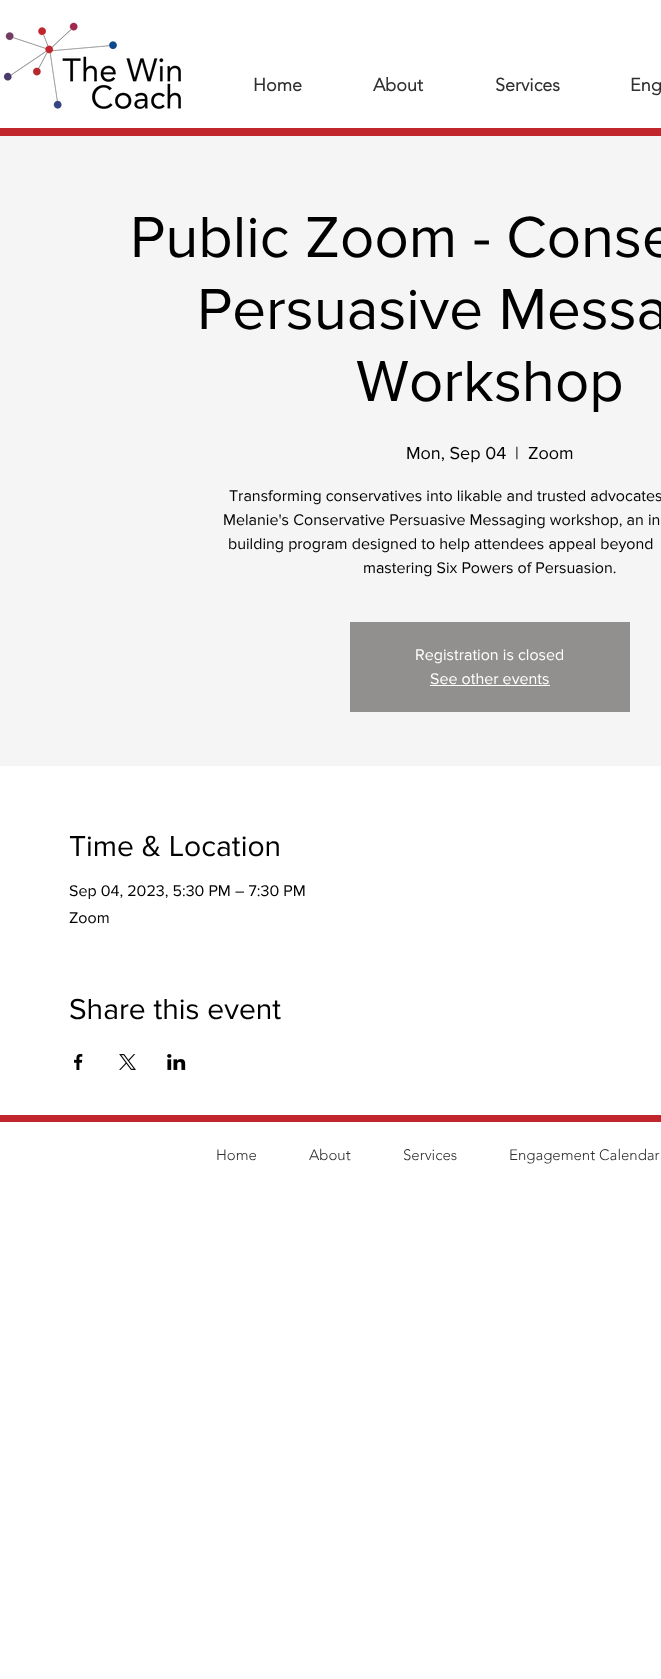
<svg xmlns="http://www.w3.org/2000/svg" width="661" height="1679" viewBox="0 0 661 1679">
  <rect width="100%" height="100%" fill="#fff"/>
  <image x="3" y="22" width="178" height="87" href="img/1.png"/>
  <path d="M0 128h661v8H0z" fill="#c0262b"/>
  <path d="M0 136h661v630H0z" fill="#f5f5f5"/>
  <path d="M350 622h280v90H350z" fill="#928f8f"/>
  <path d="M430 685h120v1H430z" fill="#fff"/>
  <image x="74" y="1054" width="9" height="16" href="img/2.png"/>
  <image x="119" y="1054" width="17" height="16" href="img/3.png"/>
  <image x="167" y="1054" width="19" height="16" href="img/4.png"/>
  <path d="M0 1115h661v7H0z" fill="#c0262b"/>
  <g font-family="'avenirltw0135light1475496'" font-size="18" font-weight="bold" fill="#313030">
    <text x="253" y="91">Home</text>
    <text x="373" y="91">About</text>
    <text x="495" y="91">Services</text>
    <text x="630" y="91">Eng</text>
  </g>
  <g font-family="'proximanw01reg'" font-size="60" fill="#000">
    <text x="130" y="257">Public Zoom - Conse</text>
    <text x="197" y="329">Persuasive Messa</text>
    <text x="356" y="401">Workshop</text>
  </g>
  <g font-family="'proximanw01reg'" font-size="18" fill="#000">
    <text x="406" y="459">Mon, Sep 04</text>
    <text x="515" y="459">|</text>
    <text x="528" y="459">Zoom</text>
  </g>
  <g font-family="'proximanw01reg'" font-size="16" fill="#000">
    <text x="229" y="501">Transforming conservatives into likable and trusted advocates</text>
    <text x="223" y="525">Melanie's Conservative Persuasive Messaging workshop, an in</text>
    <text x="228" y="549">building program designed to help attendees appeal beyond</text>
    <text x="363" y="573">mastering Six Powers of Persuasion.</text>
  </g>
  <g font-family="'proximanw01reg'" font-size="16" fill="#fff">
    <text x="415" y="660">Registration is closed</text>
    <text x="430" y="684">See other events</text>
  </g>
  <text x="69" y="856" font-family="'proximanw01reg'" font-size="30" fill="#000">Time &amp; Location</text>
  <g font-family="'proximanw01reg'" font-size="16" fill="#000">
    <text x="69" y="896">Sep 04, 2023, 5:30 PM – 7:30 PM</text>
    <text x="69" y="923">Zoom</text>
  </g>
  <text x="69" y="1019" font-family="'proximanw01reg'" font-size="30" fill="#000">Share this event</text>
  <g font-family="'avenirltw0135light1475496'" font-size="15" font-weight="300" fill="#313030">
    <text x="216" y="1160">Home</text>
    <text x="309" y="1160">About</text>
    <text x="403" y="1160">Services</text>
    <text x="509" y="1160">Engagement Calendar</text>
  </g>
</svg>
